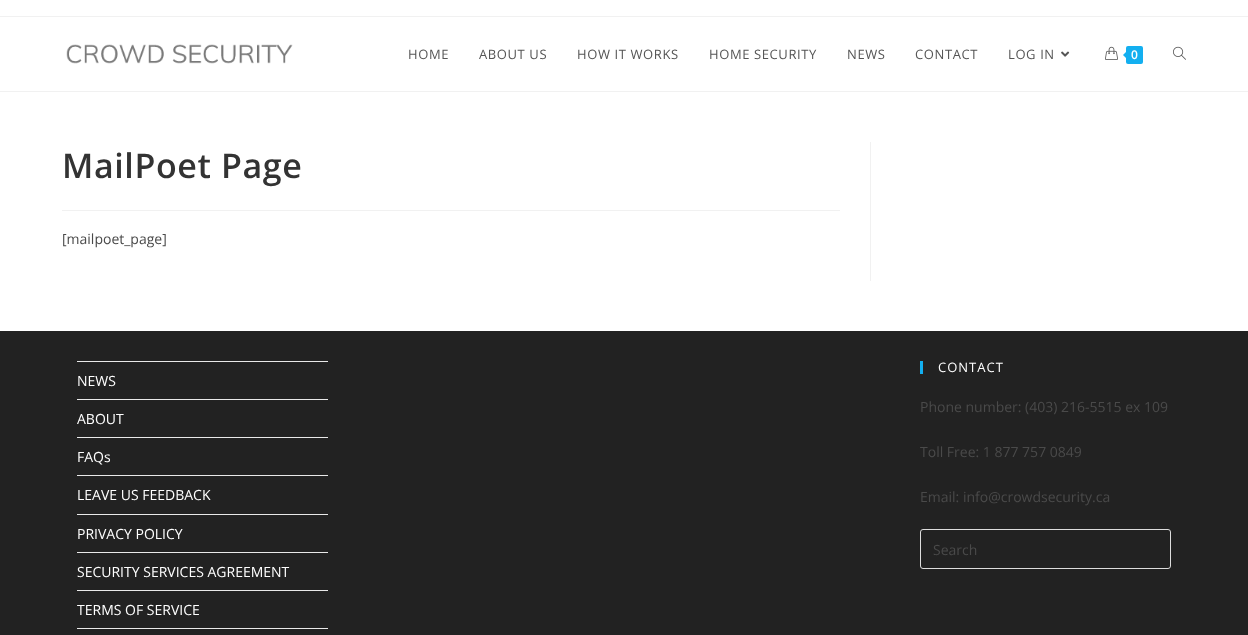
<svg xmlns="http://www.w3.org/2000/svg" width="1248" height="635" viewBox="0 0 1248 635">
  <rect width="100%" height="100%" fill="#fff"/>
  <path d="M0 16h1248v1H0z" fill="#f1f1f1"/>
  <path d="M0 91h1248v1H0z" fill="#f1f1f1"/>
  <image x="66" y="44" width="227" height="20" href="img/1.png"/>
  <image x="1061" y="51" width="9" height="6" href="img/2.png"/>
  <image x="1105" y="46" width="13" height="14" href="img/3.png"/>
  <rect x="1126" y="46" width="17" height="18" rx="2" fill="#13aff0"/>
  <path d="M1128 50V60L1123 55Z" fill="#13aff0"/>
  <image x="1173" y="46" width="13" height="14" href="img/4.png"/>
  <path d="M870 142h1v139H870z" fill="#f1f1f1"/>
  <path d="M62 210h778v1H62z" fill="#f1f1f1"/>
  <path d="M0 331h1248v304H0z" fill="#222"/>
  <path d="M77 361h251v1H77z" fill="#e9e9e9"/>
  <path d="M77 399h251v1H77z" fill="#e9e9e9"/>
  <path d="M77 437h251v1H77z" fill="#e9e9e9"/>
  <path d="M77 475h251v1H77z" fill="#e9e9e9"/>
  <path d="M77 514h251v1H77z" fill="#e9e9e9"/>
  <path d="M77 552h251v1H77z" fill="#e9e9e9"/>
  <path d="M77 590h251v1H77z" fill="#e9e9e9"/>
  <path d="M77 628h251v1H77z" fill="#e9e9e9"/>
  <path d="M920 361h3v13H920z" fill="#13aff0"/>
  <rect x="920.5" y="529.5" width="250" height="39" rx="2.5" fill="none" stroke="#ddd"/>
  <g font-family="Open Sans" font-size="13" letter-spacing="0.6" fill="#555">
    <text x="408" y="59">HOME</text>
    <text x="479" y="59">ABOUT US</text>
    <text x="577" y="59">HOW IT WORKS</text>
    <text x="709" y="59">HOME SECURITY</text>
    <text x="847" y="59">NEWS</text>
    <text x="915" y="59">CONTACT</text>
    <text x="1008" y="59">LOG IN</text>
  </g>
  <text x="1131" y="59" font-family="Open Sans" font-size="12" font-weight="600" fill="#fff">0</text>
  <text x="62" y="178" font-family="Open Sans" font-size="34" font-weight="600" letter-spacing="0.6" fill="#333">MailPoet Page</text>
  <text x="62" y="244" font-family="Open Sans" font-size="14" fill="#4a4a4a">[mailpoet_page]</text>
  <g font-family="Open Sans" font-size="14" fill="#fff">
    <text x="77" y="386">NEWS</text>
    <text x="77" y="424">ABOUT</text>
    <text x="77" y="462">FAQs</text>
    <text x="77" y="500">LEAVE US FEEDBACK</text>
    <text x="77" y="539">PRIVACY POLICY</text>
    <text x="77" y="577">SECURITY SERVICES AGREEMENT</text>
    <text x="77" y="615">TERMS OF SERVICE</text>
  </g>
  <text x="938" y="372" font-family="Open Sans" font-size="13" letter-spacing="1" fill="#fff">CONTACT</text>
  <g font-family="Open Sans" font-size="14" fill="#4a4a4a">
    <text x="920" y="412">Phone number: (403) 216-5515 ex 109</text>
    <text x="920" y="457">Toll Free: 1 877 757 0849</text>
    <text x="920" y="502">Email: info@crowdsecurity.ca</text>
    <text x="933" y="555">Search</text>
  </g>
</svg>
